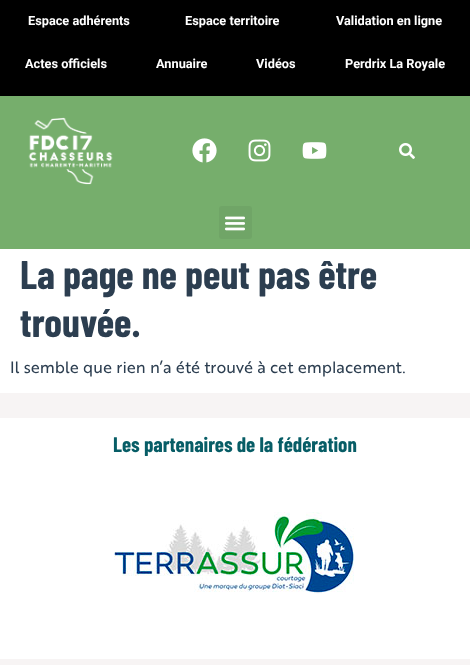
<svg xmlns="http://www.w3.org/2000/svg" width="470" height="665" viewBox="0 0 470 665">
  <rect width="100%" height="100%" fill="#fff"/>
  <path d="M0 0h470v96H0z" fill="#000"/>
  <path d="M0 96h470v153H0z" fill="#76ae6c"/>
  <image x="28" y="117" width="85" height="68" href="img/1.png"/>
  <image x="192" y="138" width="25" height="25" href="img/2.png"/>
  <image x="248" y="139" width="23" height="23" href="img/3.png"/>
  <image x="302" y="142" width="25" height="17" href="img/4.png"/>
  <image x="399" y="143" width="16" height="16" href="img/5.png"/>
  <rect x="219" y="206" width="33" height="33" rx="3" fill="#70a567"/>
  <image x="224" y="216" width="21" height="15" href="img/6.png"/>
  <path d="M0 393h470v272H0z" fill="#f7f4f4"/>
  <path d="M0 418h470v241H0z" fill="#fff"/>
  <image x="114" y="512" width="240" height="82" href="img/7.png"/>
  <g font-family="Roboto" font-size="12.75" font-weight="bold" fill="#fff">
    <text x="28" y="25">Espace adhérents</text>
    <text x="185" y="25">Espace territoire</text>
    <text x="336" y="25">Validation en ligne</text>
    <text x="25" y="68">Actes officiels</text>
    <text x="156" y="68">Annuaire</text>
    <text x="256" y="68">Vidéos</text>
    <text x="345" y="68">Perdrix La Royale</text>
  </g>
  <g font-family="Barlow Condensed" font-size="40" font-weight="bold" fill="#2c3e50">
    <text x="20" y="289">La page ne peut pas être</text>
    <text x="20" y="337">trouvée.</text>
  </g>
  <text x="10" y="373" font-family="'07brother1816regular'" font-size="16" fill="#2c3e50">Il semble que rien n’a été trouvé à cet emplacement.</text>
  <text x="113" y="452" font-family="Barlow Condensed" font-size="21" font-weight="bold" fill="#075d66">Les partenaires de la fédération</text>
</svg>
